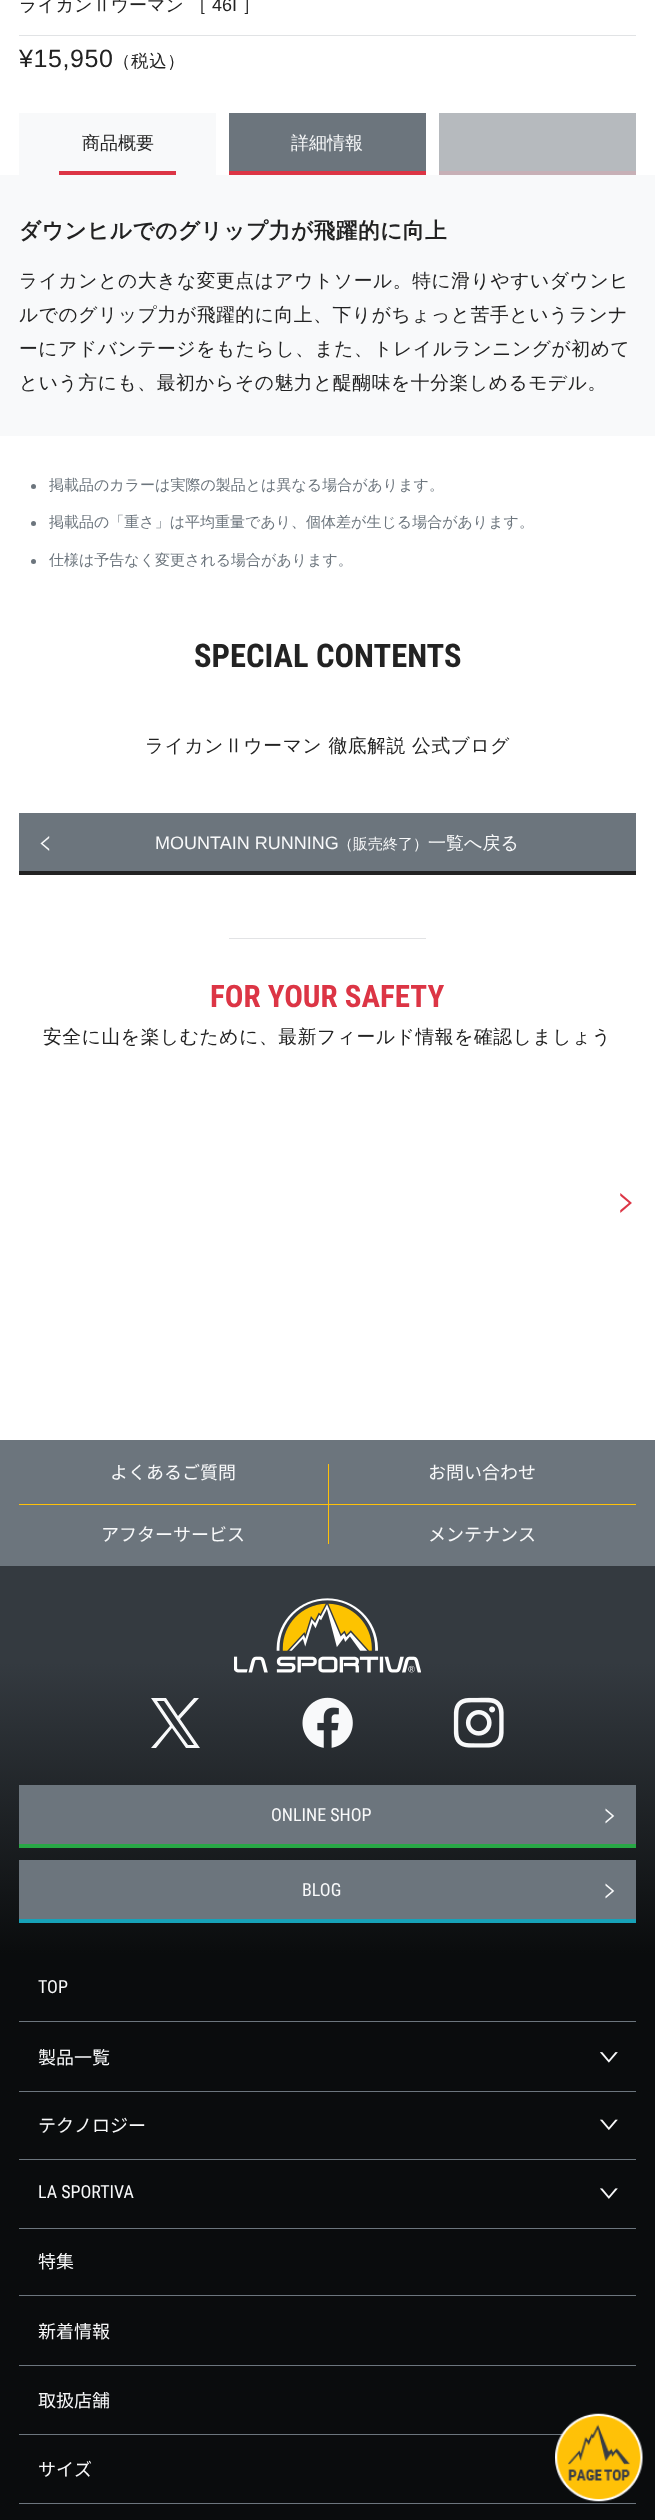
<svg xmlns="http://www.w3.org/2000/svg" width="655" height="2520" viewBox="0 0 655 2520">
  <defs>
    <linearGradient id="g1" gradientUnits="userSpaceOnUse" x1="328" y1="1566" x2="328" y2="1954"><stop offset="0" stop-color="#343a40"/><stop offset="0.25" stop-color="#343a40"/><stop offset="1" stop-color="#0a0c0d"/></linearGradient>
  </defs>
  <rect width="100%" height="100%" fill="#fff"/>
  <path d="M19 35h617v1H19z" fill="#e1e3e5"/>
  <path d="M19 113h197v62H19z" fill="#f8f9fa"/>
  <path d="M59 171h117v4H59z" fill="#dc3545"/>
  <path d="M229 113h197v58H229z" fill="#6c757d"/>
  <path d="M229 171h197v4H229z" fill="#dc3545"/>
  <path d="M439 113h197v58H439z" fill="#b6babe"/>
  <path d="M439 171h197v4H439z" fill="#c7b0b6"/>
  <path d="M0 175h655v261H0z" fill="#f8f9fa"/>
  <circle cx="33.5" cy="486.5" r="2.5" fill="#6c757d"/>
  <circle cx="33.5" cy="523.5" r="2.5" fill="#6c757d"/>
  <circle cx="33.5" cy="561.5" r="2.5" fill="#6c757d"/>
  <path d="M19 813h617v58H19z" fill="#6c757d"/>
  <image x="40" y="836" width="10" height="15" href="img/1.png"/>
  <path d="M19 871h617v4H19z" fill="#222"/>
  <path d="M229 938h197v1H229z" fill="#e2e3e5"/>
  <image x="620" y="1193" width="12" height="20" href="img/2.png"/>
  <path d="M0 1440h655v126H0z" fill="#6c757d"/>
  <path d="M19 1504h617v1H19z" fill="#ffc107"/>
  <path d="M328 1464h1v80H328z" fill="#ffc107"/>
  <path d="M0 1566h655v388H0z" fill="url(#g1)"/>
  <image x="234" y="1598" width="187" height="75" href="img/3.png"/>
  <path d="M180 1719L199 1698H194L178 1716L166 1698H151L170 1726L151 1748H156L172 1728L186 1748H200ZM174 1726L157 1701H164L194 1745H188Z" fill="#f8f9fa"/>
  <image x="302" y="1697" width="51" height="51" href="img/4.png"/>
  <image x="453" y="1697" width="51" height="51" href="img/5.png"/>
  <path d="M19 1785h617v59H19z" fill="#6c757d"/>
  <image x="605" y="1808" width="10" height="16" href="img/6.png"/>
  <path d="M19 1844h617v4H19z" fill="#28a745"/>
  <path d="M19 1860h617v59H19z" fill="#6c757d"/>
  <image x="605" y="1883" width="10" height="16" href="img/6.png"/>
  <path d="M19 1919h617v4H19z" fill="#17a2b8"/>
  <path d="M0 1954h655v566H0z" fill="#0a0c0d"/>
  <path d="M19 2021h617v1H19z" fill="#6c757d"/>
  <path d="M19 2091h617v1H19z" fill="#6c757d"/>
  <image x="600" y="2052" width="18" height="11" href="img/7.png"/>
  <path d="M19 2159h617v1H19z" fill="#6c757d"/>
  <image x="600" y="2119" width="18" height="12" href="img/8.png"/>
  <path d="M19 2228h617v1H19z" fill="#6c757d"/>
  <image x="600" y="2188" width="18" height="11" href="img/9.png"/>
  <path d="M19 2295h617v1H19z" fill="#6c757d"/>
  <path d="M19 2365h617v1H19z" fill="#6c757d"/>
  <path d="M19 2434h617v1H19z" fill="#6c757d"/>
  <path d="M19 2503h617v1H19z" fill="#6c757d"/>
  <image x="555" y="2413" width="88" height="89" href="img/10.png"/>
  <text x="19" y="11" font-family="WenQuanYi Zen Hei" font-size="18" font-weight="500" fill="#222">ライカンⅡウーマン ［</text>
  <text x="212" y="11" font-family="Liberation Sans" font-size="18" fill="#222">46I</text>
  <text x="242" y="11" font-family="WenQuanYi Zen Hei" font-size="18" font-weight="500" fill="#222">］</text>
  <text x="19" y="67" font-family="Liberation Sans" font-size="25" letter-spacing="0.6" fill="#222">¥15,950</text>
  <text x="113" y="67" font-family="WenQuanYi Zen Hei" font-size="17.5" font-weight="500" letter-spacing="0.6" fill="#222">（税込）</text>
  <text x="82" y="149" font-family="WenQuanYi Zen Hei" font-size="18" font-weight="500" fill="#222">商品概要</text>
  <text x="291" y="149" font-family="WenQuanYi Zen Hei" font-size="18" font-weight="500" fill="#f8f9fa">詳細情報</text>
  <text x="19" y="238" font-family="WenQuanYi Zen Hei" font-size="21.6" font-weight="bold" letter-spacing="0.6" fill="#222">ダウンヒルでのグリップ力が飛躍的に向上</text>
  <g font-family="WenQuanYi Zen Hei" font-size="18.75" font-weight="500" letter-spacing="0.6" fill="#222">
    <text x="19" y="287">ライカンとの大きな変更点はアウトソール。特に滑りやすいダウンヒ</text>
    <text x="19" y="321">ルでのグリップ力が飛躍的に向上、下りがちょっと苦手というランナ</text>
    <text x="19" y="355">ーにアドバンテージをもたらし、また、トレイルランニングが初めて</text>
    <text x="19" y="389">という方にも、最初からその魅力と醍醐味を十分楽しめるモデル。</text>
  </g>
  <g font-family="WenQuanYi Zen Hei" font-size="15" font-weight="500" fill="#6c757d">
    <text x="49" y="490">掲載品のカラーは実際の製品とは異なる場合があります。</text>
    <text x="49" y="527">掲載品の「重さ」は平均重量であり、個体差が生じる場合があります。</text>
    <text x="49" y="565">仕様は予告なく変更される場合があります。</text>
  </g>
  <text x="194" y="667" font-family="Roboto Condensed" font-size="32.5" font-weight="bold" fill="#222">SPECIAL CONTENTS</text>
  <text x="145" y="752" font-family="WenQuanYi Zen Hei" font-size="18.75" font-weight="500" letter-spacing="0.6" fill="#222">ライカンⅡウーマン 徹底解説 公式ブログ</text>
  <text x="155" y="849" font-family="Liberation Sans" font-size="18" fill="#f8f9fa">MOUNTAIN RUNNING</text>
  <text x="338" y="849" font-family="WenQuanYi Zen Hei" font-size="15" font-weight="500" fill="#f8f9fa">（販売終了）</text>
  <text x="428" y="849" font-family="WenQuanYi Zen Hei" font-size="18" font-weight="500" fill="#f8f9fa">一覧へ戻る</text>
  <text x="210" y="1007" font-family="Roboto Condensed" font-size="31" font-weight="bold" fill="#dc3545">FOR YOUR SAFETY</text>
  <text x="43" y="1043" font-family="WenQuanYi Zen Hei" font-size="18.75" font-weight="500" letter-spacing="0.6" fill="#222">安全に山を楽しむために、最新フィールド情報を確認しましょう</text>
  <g font-family="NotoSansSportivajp" font-size="18" fill="#f8f9fa">
    <text x="110" y="1479">よくあるご質問</text>
    <text x="428" y="1479">お問い合わせ</text>
    <text x="101" y="1541">アフターサービス</text>
    <text x="428" y="1541">メンテナンス</text>
  </g>
  <g font-family="Roboto Condensed" font-size="18" fill="#f8f9fa">
    <text x="271" y="1821">ONLINE SHOP</text>
    <text x="302" y="1896">BLOG</text>
    <text x="38" y="1993">TOP</text>
  </g>
  <g font-family="NotoSansSportivajp" font-size="18" fill="#f8f9fa">
    <text x="38" y="2064">製品一覧</text>
    <text x="38" y="2132">テクノロジー</text>
  </g>
  <text x="38" y="2198" font-family="Roboto Condensed" font-size="18" fill="#f8f9fa">LA SPORTIVA</text>
  <g font-family="NotoSansSportivajp" font-size="18" fill="#f8f9fa">
    <text x="38" y="2268">特集</text>
    <text x="38" y="2338">新着情報</text>
    <text x="38" y="2407">取扱店舗</text>
    <text x="38" y="2476">サイズ</text>
  </g>
</svg>
